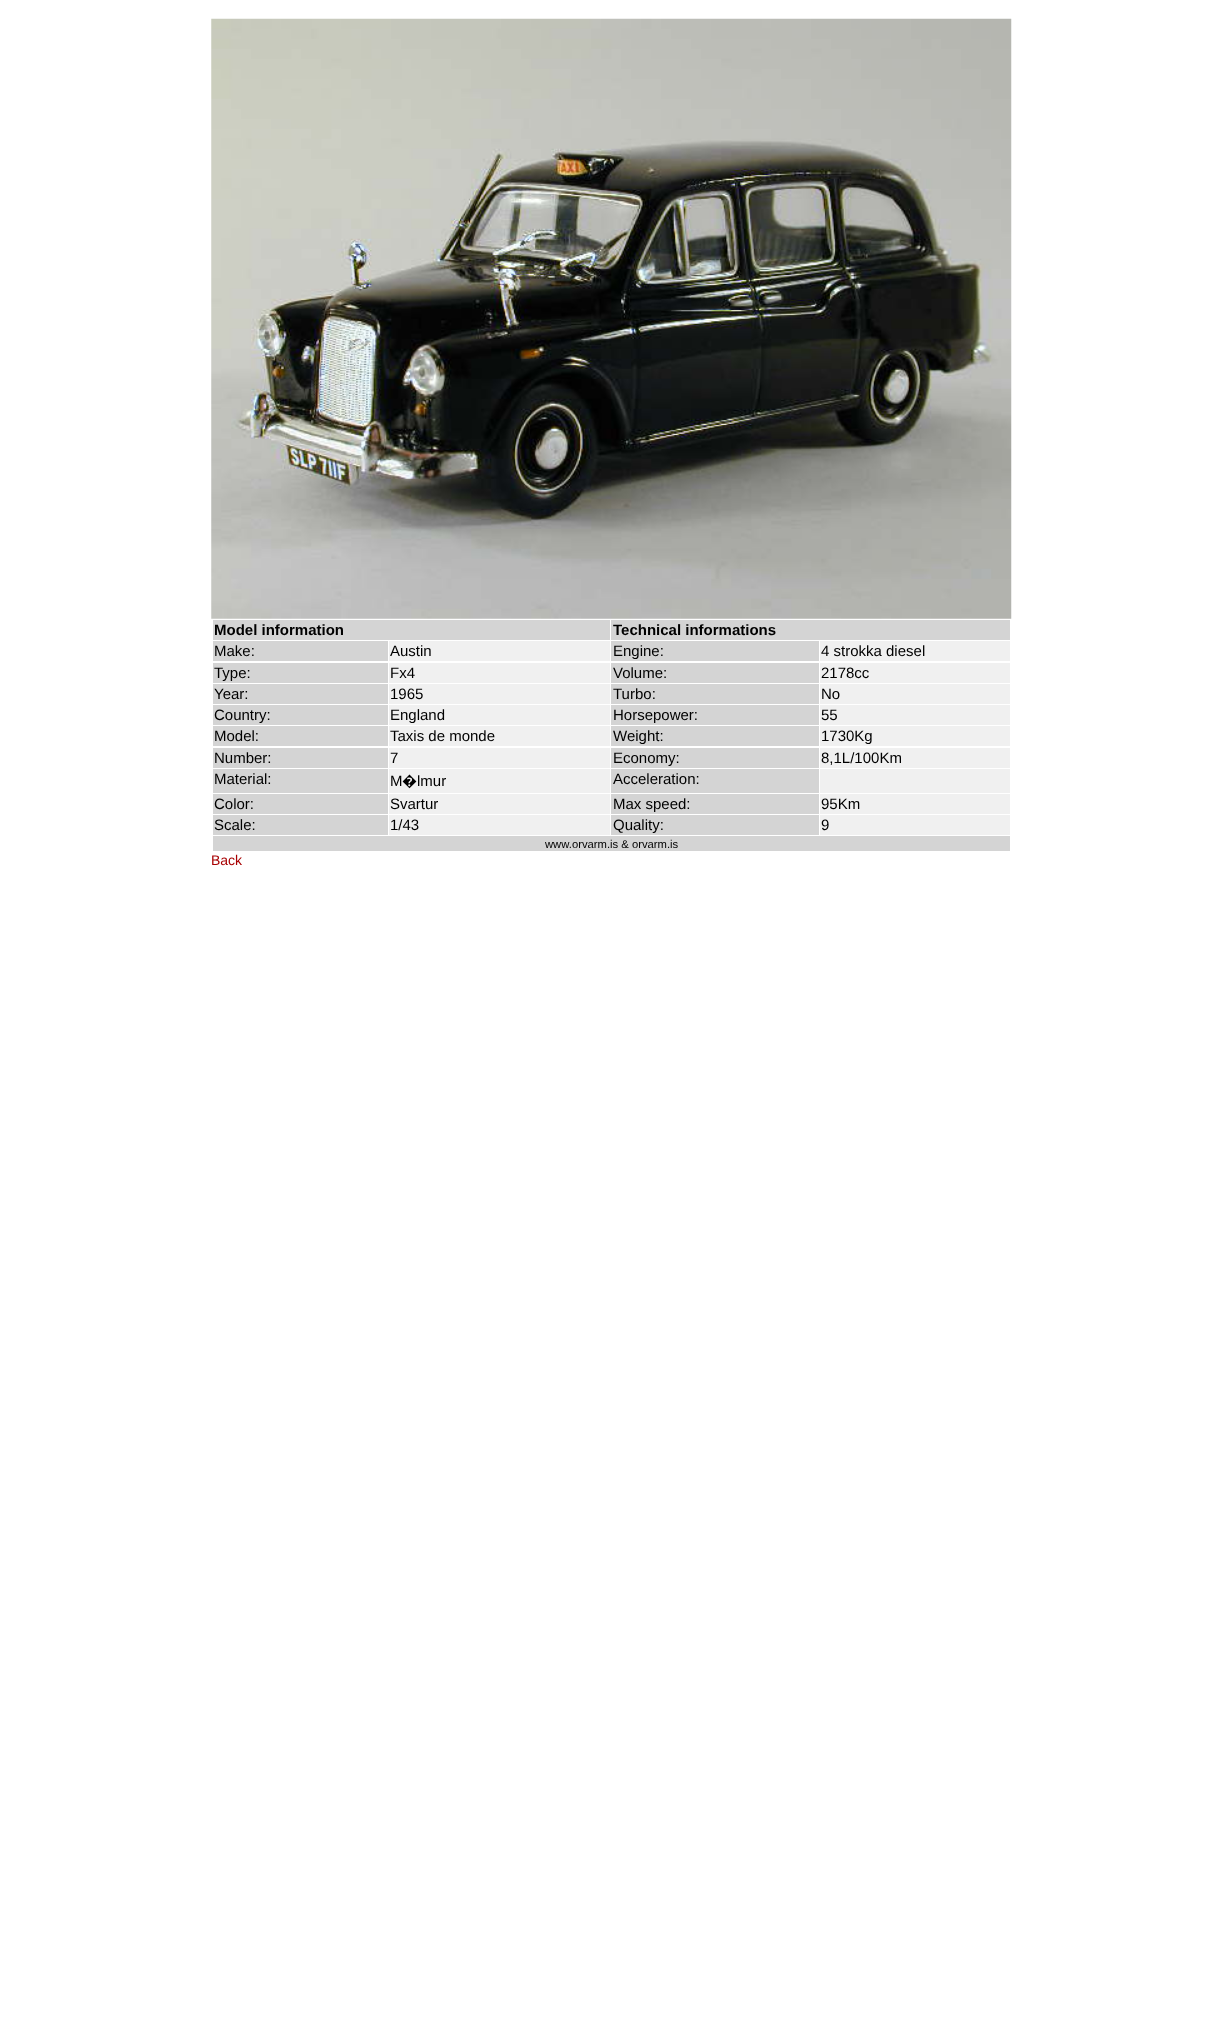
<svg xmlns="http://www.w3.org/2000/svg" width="1222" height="2021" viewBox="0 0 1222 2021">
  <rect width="100%" height="100%" fill="#fff"/>
  <image x="211" y="18" width="801" height="601" href="img/1.png"/>
  <path d="M213 620h397v20H213z" fill="#d4d4d4"/>
  <path d="M611 620h399v20H611z" fill="#d4d4d4"/>
  <path d="M213 641h175v20H213z" fill="#d4d4d4"/>
  <path d="M389 641h221v20H389z" fill="#f0f0f0"/>
  <path d="M611 641h208v20H611z" fill="#d4d4d4"/>
  <path d="M820 641h190v20H820z" fill="#f0f0f0"/>
  <path d="M213 663h175v20H213z" fill="#d4d4d4"/>
  <path d="M389 663h221v20H389z" fill="#f0f0f0"/>
  <path d="M611 663h208v20H611z" fill="#d4d4d4"/>
  <path d="M820 663h190v20H820z" fill="#f0f0f0"/>
  <path d="M213 684h175v20H213z" fill="#d4d4d4"/>
  <path d="M389 684h221v20H389z" fill="#f0f0f0"/>
  <path d="M611 684h208v20H611z" fill="#d4d4d4"/>
  <path d="M820 684h190v20H820z" fill="#f0f0f0"/>
  <path d="M213 705h175v20H213z" fill="#d4d4d4"/>
  <path d="M389 705h221v20H389z" fill="#f0f0f0"/>
  <path d="M611 705h208v20H611z" fill="#d4d4d4"/>
  <path d="M820 705h190v20H820z" fill="#f0f0f0"/>
  <path d="M213 726h175v20H213z" fill="#d4d4d4"/>
  <path d="M389 726h221v20H389z" fill="#f0f0f0"/>
  <path d="M611 726h208v20H611z" fill="#d4d4d4"/>
  <path d="M820 726h190v20H820z" fill="#f0f0f0"/>
  <path d="M213 748h175v20H213z" fill="#d4d4d4"/>
  <path d="M389 748h221v20H389z" fill="#f0f0f0"/>
  <path d="M611 748h208v20H611z" fill="#d4d4d4"/>
  <path d="M820 748h190v20H820z" fill="#f0f0f0"/>
  <path d="M213 769h175v24H213z" fill="#d4d4d4"/>
  <path d="M389 769h221v24H389z" fill="#f0f0f0"/>
  <path d="M611 769h208v24H611z" fill="#d4d4d4"/>
  <path d="M820 769h190v24H820z" fill="#f0f0f0"/>
  <path d="M213 794h175v20H213z" fill="#d4d4d4"/>
  <path d="M389 794h221v20H389z" fill="#f0f0f0"/>
  <path d="M611 794h208v20H611z" fill="#d4d4d4"/>
  <path d="M820 794h190v20H820z" fill="#f0f0f0"/>
  <path d="M213 815h175v20H213z" fill="#d4d4d4"/>
  <path d="M389 815h221v20H389z" fill="#f0f0f0"/>
  <path d="M611 815h208v20H611z" fill="#d4d4d4"/>
  <path d="M820 815h190v20H820z" fill="#f0f0f0"/>
  <path d="M213 836h797v15H213z" fill="#d4d4d4"/>
  <g font-family="Liberation Sans" font-size="15" font-weight="bold" fill="#000">
    <text x="214" y="635">Model information</text>
    <text x="613" y="635">Technical informations</text>
  </g>
  <g font-family="Liberation Sans" font-size="15" fill="#000">
    <text x="214" y="656">Make:</text>
    <text x="390" y="656">Austin</text>
    <text x="613" y="656">Engine:</text>
    <text x="821" y="656">4 strokka diesel</text>
    <text x="214" y="678">Type:</text>
    <text x="390" y="678">Fx4</text>
    <text x="613" y="678">Volume:</text>
    <text x="821" y="678">2178cc</text>
    <text x="214" y="699">Year:</text>
    <text x="390" y="699">1965</text>
    <text x="613" y="699">Turbo:</text>
    <text x="821" y="699">No</text>
    <text x="214" y="720">Country:</text>
    <text x="390" y="720">England</text>
    <text x="613" y="720">Horsepower:</text>
    <text x="821" y="720">55</text>
    <text x="214" y="741">Model:</text>
    <text x="390" y="741">Taxis de monde</text>
    <text x="613" y="741">Weight:</text>
    <text x="821" y="741">1730Kg</text>
    <text x="214" y="763">Number:</text>
    <text x="390" y="763">7</text>
    <text x="613" y="763">Economy:</text>
    <text x="821" y="763">8,1L/100Km</text>
    <text x="214" y="784">Material:</text>
    <text x="390" y="786">M</text>
  </g>
  <text x="402" y="786" font-family="Noto Sans" font-size="15" fill="#000">�</text>
  <g font-family="Liberation Sans" font-size="15" fill="#000">
    <text x="417" y="786">lmur</text>
    <text x="613" y="784">Acceleration:</text>
    <text x="214" y="809">Color:</text>
    <text x="390" y="809">Svartur</text>
    <text x="613" y="809">Max speed:</text>
    <text x="821" y="809">95Km</text>
    <text x="214" y="830">Scale:</text>
    <text x="390" y="830">1/43</text>
    <text x="613" y="830">Quality:</text>
    <text x="821" y="830">9</text>
  </g>
  <text x="545" y="848" font-family="Liberation Sans" font-size="11.25" fill="#000">www.orvarm.is &amp; orvarm.is</text>
  <text x="211" y="865" font-family="Liberation Sans" font-size="14" fill="#a80002">Back</text>
</svg>
